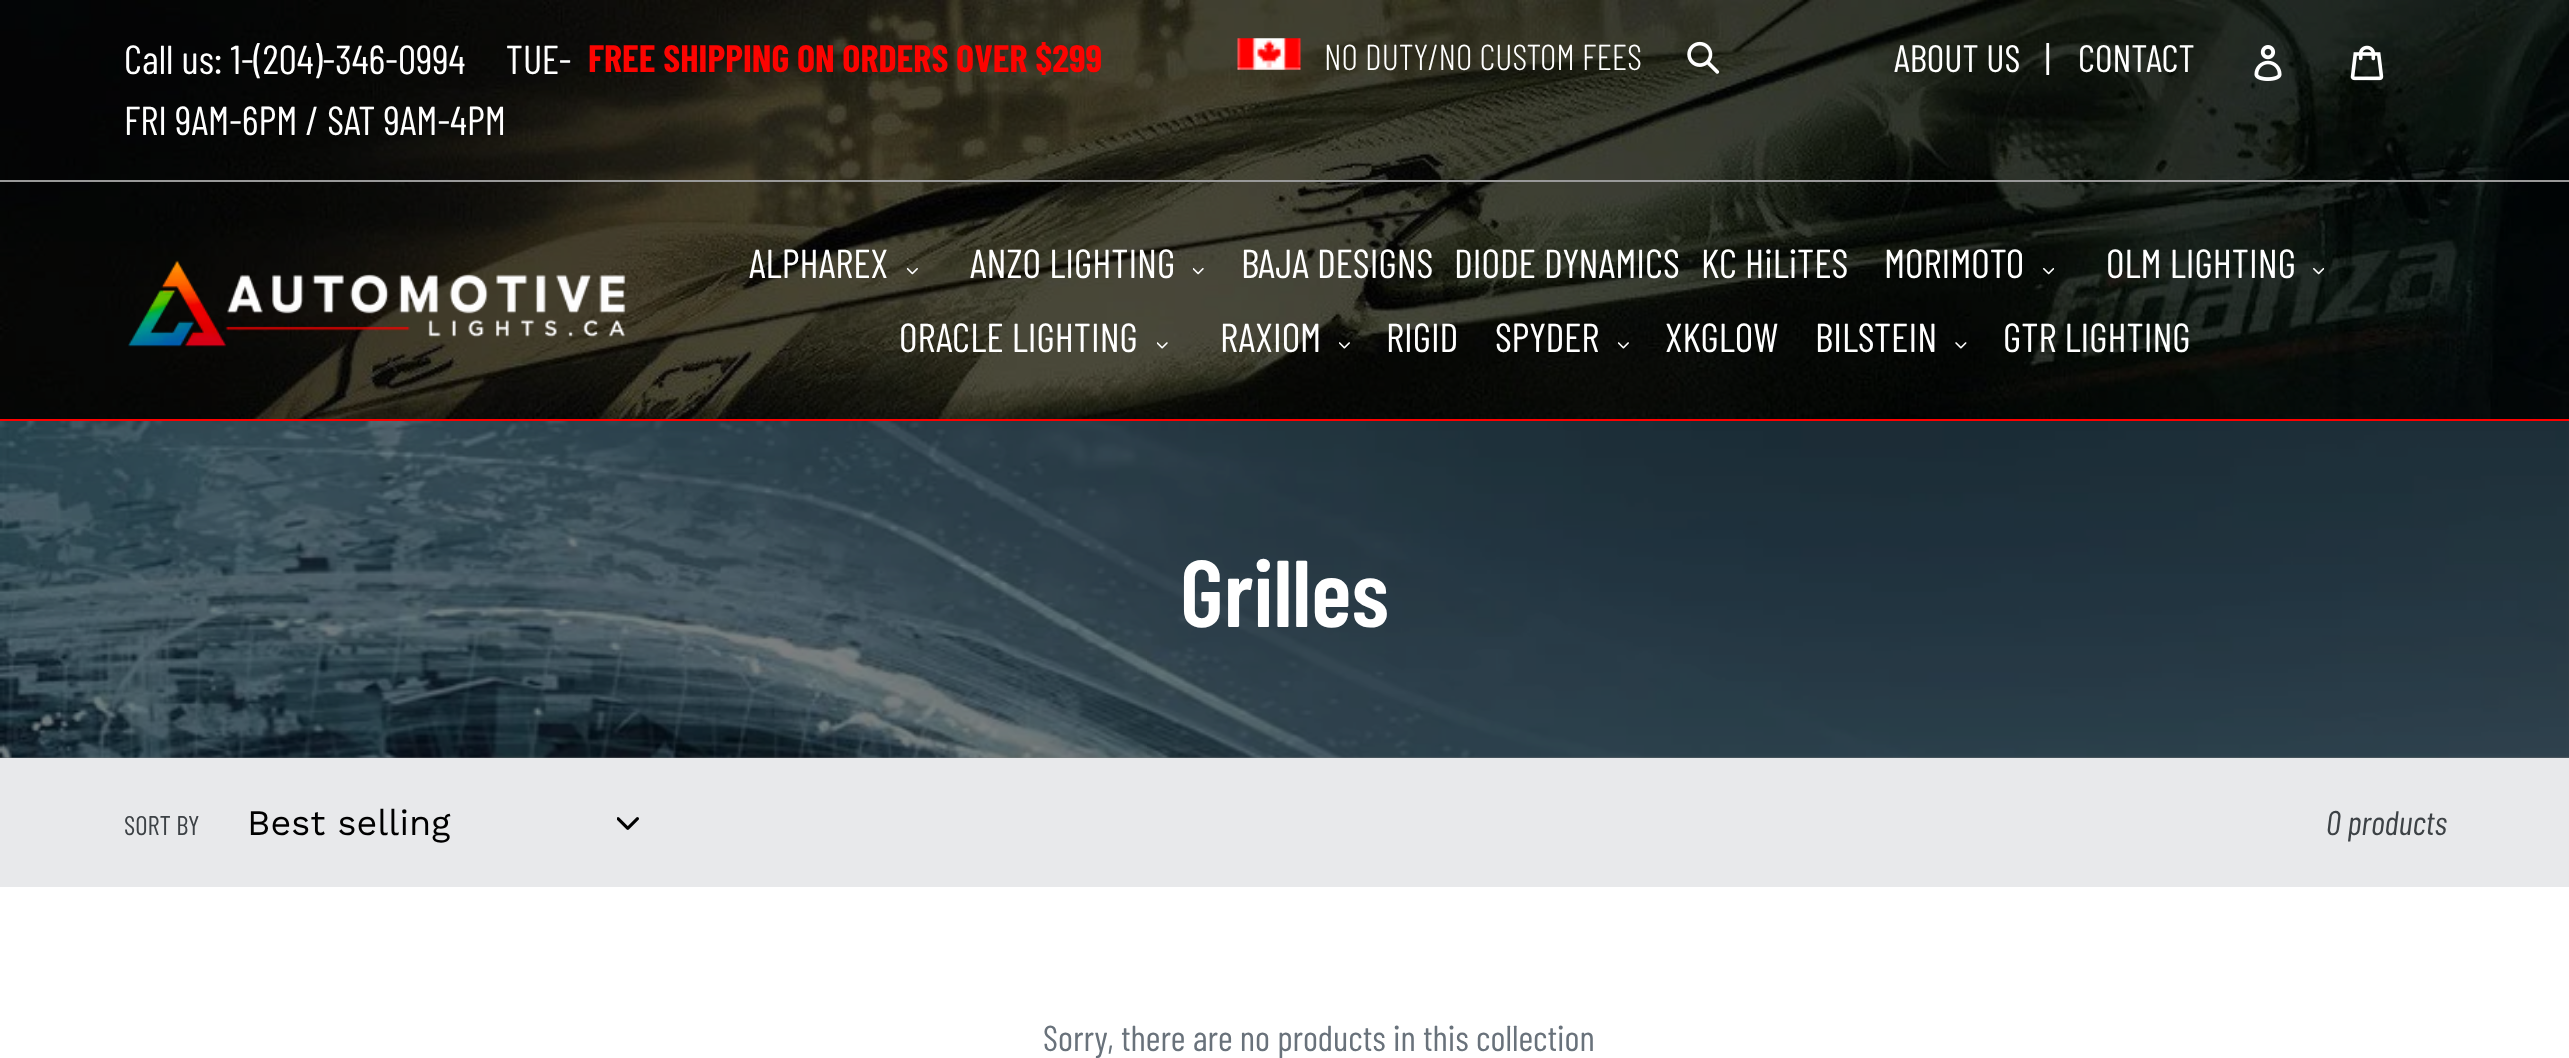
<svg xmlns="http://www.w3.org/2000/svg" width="2569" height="1058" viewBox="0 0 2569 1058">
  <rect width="100%" height="100%" fill="#fff"/>
  <path d="M0 421h2569v337H0z" fill="#808080"/>
  <image x="0" y="0" width="2569" height="419" href="img/1.png"/>
  <path d="M0 419h2569v2H0z" fill="#f00"/>
  <path d="M0 180h2569v2H0z" fill="#999"/>
  <image x="1237" y="38" width="64" height="32" href="img/2.png"/>
  <image x="1687" y="41" width="33" height="33" href="img/3.png"/>
  <image x="2254" y="45" width="28" height="36" href="img/4.png"/>
  <image x="2350" y="45" width="34" height="36" href="img/5.png"/>
  <image x="128" y="260" width="498" height="87" href="img/6.png"/>
  <image x="907" y="267" width="11" height="8" href="img/7.png"/>
  <image x="1193" y="267" width="11" height="8" href="img/8.png"/>
  <image x="2043" y="267" width="11" height="8" href="img/9.png"/>
  <image x="2313" y="267" width="11" height="8" href="img/10.png"/>
  <image x="1157" y="342" width="11" height="7" href="img/11.png"/>
  <image x="1339" y="342" width="11" height="7" href="img/12.png"/>
  <image x="1618" y="342" width="11" height="7" href="img/13.png"/>
  <image x="1955" y="342" width="12" height="7" href="img/14.png"/>
  <image x="0" y="421" width="2569" height="337" href="img/15.png"/>
  <path d="M0 758h2569v129H0z" fill="#e8e9eb"/>
  <image x="617" y="817" width="22" height="13" href="img/16.png"/>
  <g font-family="Barlow Condensed" font-size="40.5" fill="#fff">
    <text x="124" y="74" xml:space="preserve">Call us: 1-(204)-346-0994     TUE-</text>
    <text x="124" y="135">FRI 9AM-6PM / SAT 9AM-4PM</text>
  </g>
  <text x="588" y="72" font-family="Barlow Condensed" font-size="38.25" font-weight="bold" fill="#fc0401">FREE SHIPPING ON ORDERS OVER $299</text>
  <text x="1324" y="70" font-family="Barlow Condensed" font-size="36" font-weight="300" fill="#fff">NO DUTY/NO CUSTOM FEES</text>
  <g font-family="Barlow Condensed" font-size="38.25" fill="#fff">
    <text x="1894" y="72">ABOUT US</text>
    <text x="2045" y="72">|</text>
    <text x="2078" y="72">CONTACT</text>
  </g>
  <g font-family="Barlow Condensed" font-size="40.5" fill="#fff">
    <text x="749" y="278">ALPHAREX</text>
    <text x="970" y="278">ANZO LIGHTING</text>
    <text x="1241" y="278">BAJA DESIGNS</text>
    <text x="1454" y="278">DIODE DYNAMICS</text>
    <text x="1701" y="278">KC HiLiTES</text>
    <text x="1884" y="278">MORIMOTO</text>
    <text x="2106" y="278">OLM LIGHTING</text>
    <text x="899" y="352">ORACLE LIGHTING</text>
    <text x="1220" y="352">RAXIOM</text>
    <text x="1386" y="352">RIGID</text>
    <text x="1495" y="352">SPYDER</text>
    <text x="1665" y="352">XKGLOW</text>
    <text x="1815" y="352">BILSTEIN</text>
    <text x="2003" y="352">GTR LIGHTING</text>
  </g>
  <text x="1180" y="627" font-family="Barlow Condensed" font-size="94.5" font-weight="600" fill="#fff">Grilles</text>
  <text x="124" y="835" font-family="Barlow Condensed" font-size="27" fill="#3d4246">SORT BY</text>
  <text x="247" y="835" font-family="Work Sans" font-size="36" fill="#000">Best selling</text>
  <text x="2326" y="835" font-family="Barlow Condensed" font-size="34" font-style="italic" fill="#3d4246">0 products</text>
  <text x="1043" y="1051" font-family="Barlow Condensed" font-size="36" fill="#69727b">Sorry, there are no products in this collection</text>
</svg>
